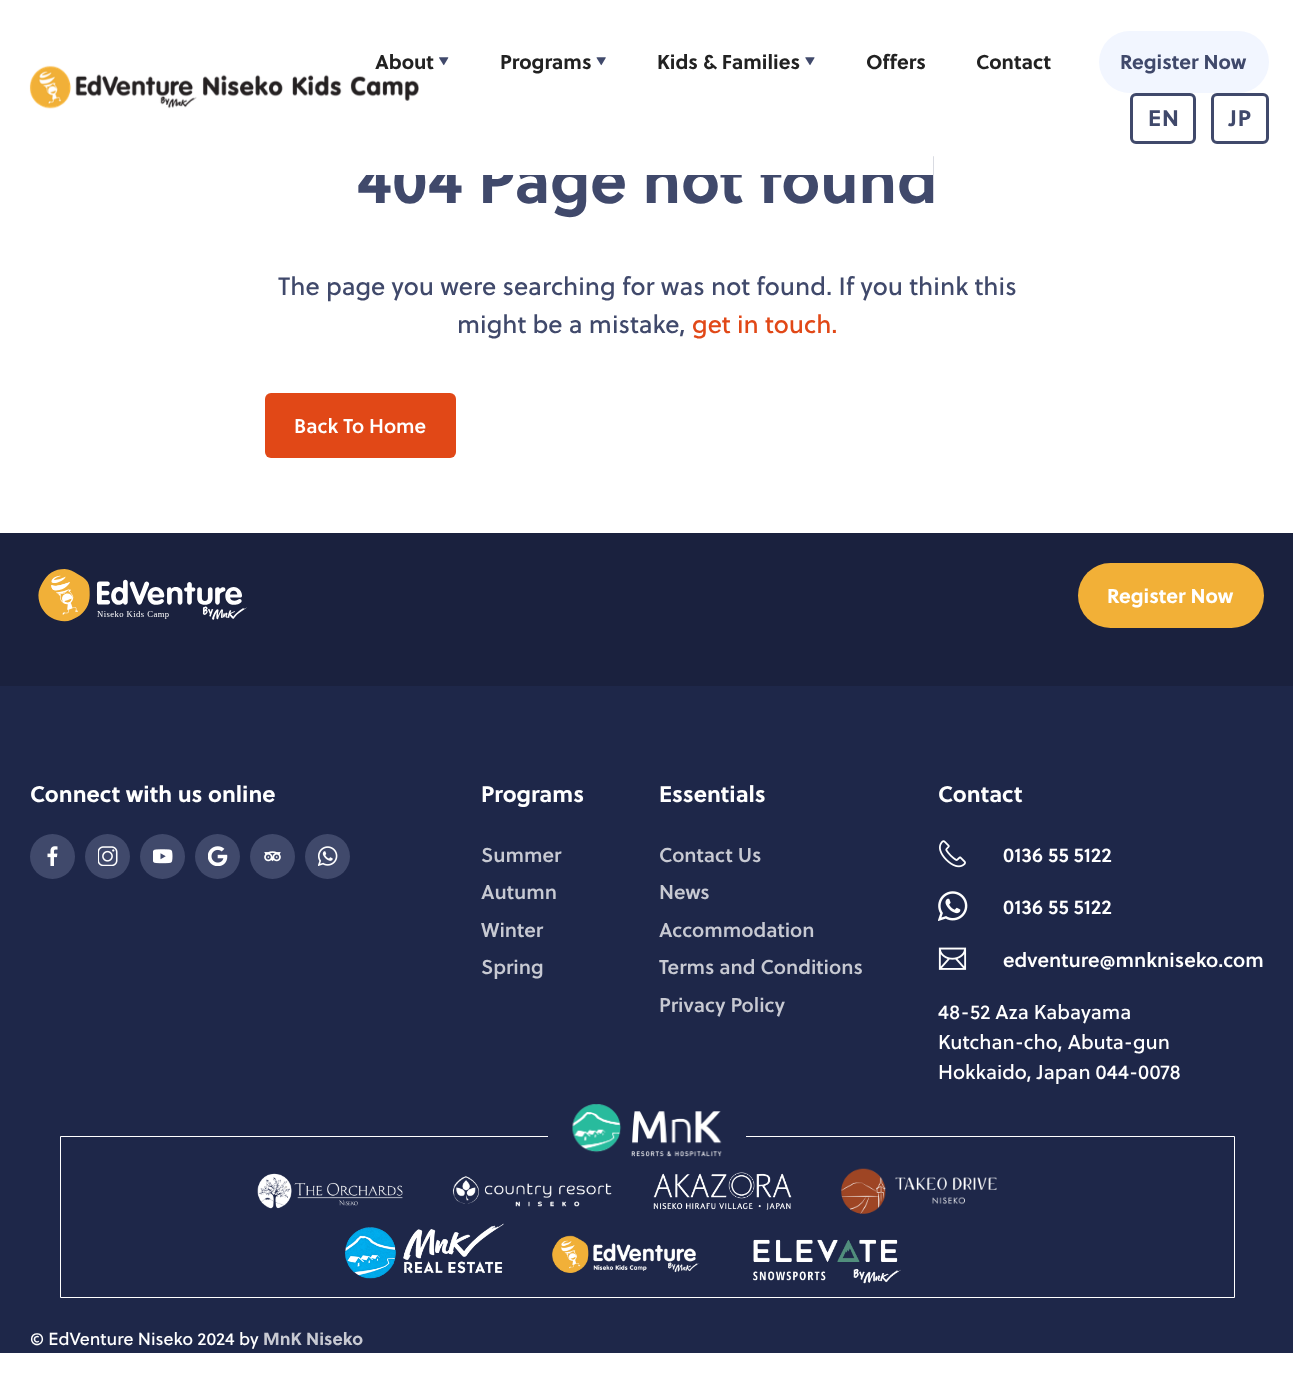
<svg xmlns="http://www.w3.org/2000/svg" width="1293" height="1398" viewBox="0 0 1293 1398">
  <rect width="100%" height="100%" fill="#fff"/>
  <image x="29" y="65" width="390" height="44" href="img/1.png"/>
  <image x="439" y="57" width="10" height="9" href="img/2.png"/>
  <image x="596" y="57" width="10" height="9" href="img/3.png"/>
  <image x="805" y="57" width="10" height="9" href="img/4.png"/>
  <rect x="1099" y="31" width="170" height="62" rx="31" fill="#f2f6ff"/>
  <rect x="1131.5" y="94.5" width="63" height="48" rx="4.5" fill="none" stroke="#40496b" stroke-width="3"/>
  <rect x="1212.5" y="94.5" width="55" height="48" rx="4.5" fill="none" stroke="#40496b" stroke-width="3"/>
  <rect x="265" y="393" width="191" height="65" rx="6" fill="#e14817"/>
  <path d="M0 686h1293v667H0z" fill="#1e2749"/>
  <path d="M0 533h1293v153H0z" fill="#1a213e"/>
  <image x="38" y="569" width="209" height="53" href="img/5.png"/>
  <rect x="1078" y="563" width="186" height="65" rx="32.5" fill="#f2b037"/>
  <circle cx="52.5" cy="856.5" r="22.5" fill="#40496b"/>
  <image x="47" y="846" width="11" height="20" href="img/6.png"/>
  <circle cx="107.5" cy="856.5" r="22.5" fill="#40496b"/>
  <image x="98" y="846" width="20" height="20" href="img/7.png"/>
  <circle cx="162.5" cy="856.5" r="22.5" fill="#40496b"/>
  <image x="153" y="849" width="20" height="15" href="img/8.png"/>
  <circle cx="217.5" cy="856.5" r="22.5" fill="#40496b"/>
  <image x="208" y="846" width="20" height="20" href="img/9.png"/>
  <circle cx="272.5" cy="856.5" r="22.5" fill="#40496b"/>
  <image x="264" y="851" width="17" height="11" href="img/10.png"/>
  <circle cx="327.5" cy="856.5" r="22.5" fill="#40496b"/>
  <image x="318" y="846" width="20" height="20" href="img/11.png"/>
  <image x="939" y="840" width="27" height="28" href="img/12.png"/>
  <image x="938" y="891" width="30" height="30" href="img/13.png"/>
  <image x="938" y="947" width="29" height="23" href="img/14.png"/>
  <path d="M60.5 1136.5h1174v161H60.5z" fill="none" stroke="#fff"/>
  <path d="M548 1136h198v1H548z" fill="#1e2749"/>
  <image x="572" y="1104" width="150" height="53" href="img/15.png"/>
  <image x="257" y="1173" width="146" height="36" href="img/16.png"/>
  <image x="452" y="1176" width="160" height="31" href="img/17.png"/>
  <image x="653" y="1172" width="139" height="38" href="img/18.png"/>
  <image x="841" y="1168" width="156" height="46" href="img/19.png"/>
  <image x="345" y="1223" width="159" height="56" href="img/20.png"/>
  <image x="552" y="1235" width="148" height="38" href="img/21.png"/>
  <image x="753" y="1239" width="148" height="45" href="img/22.png"/>
  <g font-family="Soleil" font-size="20" font-weight="bold" fill="#222">
    <text x="375" y="69">About</text>
    <text x="500" y="69">Programs</text>
    <text x="657" y="69">Kids &amp; Families</text>
    <text x="866" y="69">Offers</text>
    <text x="976" y="69">Contact</text>
  </g>
  <text x="1120" y="69" font-family="Soleil" font-size="20" font-weight="bold" fill="#40496b">Register Now</text>
  <g font-family="Soleil" font-size="22.5" font-weight="bold" letter-spacing="1" fill="#40496b">
    <text x="1148" y="126">EN</text>
    <text x="1229" y="126">JP</text>
  </g>
  <text x="357" y="203" font-family="Soleil" font-size="62.5" font-weight="bold" fill="#40496b">404 Page not found</text>
  <path d="M365 155h568v20H365z" fill="#fff"/>
  <g font-family="Soleil" font-size="25" fill="#40496b">
    <text x="278" y="295">The page you were searching for was not found. If you think this</text>
    <text x="457" y="333">might be a mistake,</text>
  </g>
  <text x="692" y="333" font-family="Soleil" font-size="25" fill="#e14817">get in touch.</text>
  <text x="294" y="433" font-family="Soleil" font-size="20" font-weight="600" fill="#fff">Back To Home</text>
  <text x="1107" y="603" font-family="Soleil" font-size="20" font-weight="bold" fill="#fff">Register Now</text>
  <g font-family="Soleil" font-size="22.5" font-weight="bold" fill="#fff">
    <text x="30" y="802">Connect with us online</text>
    <text x="481" y="802">Programs</text>
  </g>
  <g font-family="Soleil" font-size="20" font-weight="600" fill="#c7c9d2">
    <text x="481" y="862">Summer</text>
    <text x="481" y="899">Autumn</text>
    <text x="481" y="937">Winter</text>
    <text x="481" y="974">Spring</text>
  </g>
  <text x="659" y="802" font-family="Soleil" font-size="22.5" font-weight="bold" fill="#fff">Essentials</text>
  <g font-family="Soleil" font-size="20" font-weight="600" fill="#c7c9d2">
    <text x="659" y="862">Contact Us</text>
    <text x="659" y="899">News</text>
    <text x="659" y="937">Accommodation</text>
    <text x="659" y="974">Terms and Conditions</text>
    <text x="659" y="1012">Privacy Policy</text>
  </g>
  <text x="938" y="802" font-family="Soleil" font-size="22.5" font-weight="bold" fill="#fff">Contact</text>
  <g font-family="Soleil" font-size="20" font-weight="600" fill="#fff">
    <text x="1003" y="862">0136 55 5122</text>
    <text x="1003" y="914">0136 55 5122</text>
    <text x="1003" y="967">edventure@mnkniseko.com</text>
  </g>
  <g font-family="Soleil" font-size="20" fill="#fff">
    <text x="938" y="1019">48-52 Aza Kabayama</text>
    <text x="938" y="1049">Kutchan-cho, Abuta-gun</text>
    <text x="938" y="1079">Hokkaido, Japan 044-0078</text>
  </g>
  <text x="30" y="1345" font-family="Soleil" font-size="17.5" fill="#fff">© EdVenture Niseko 2024 by</text>
  <text x="263" y="1345" font-family="Soleil" font-size="17.5" font-weight="bold" fill="#c7c9d2">MnK Niseko</text>
</svg>
